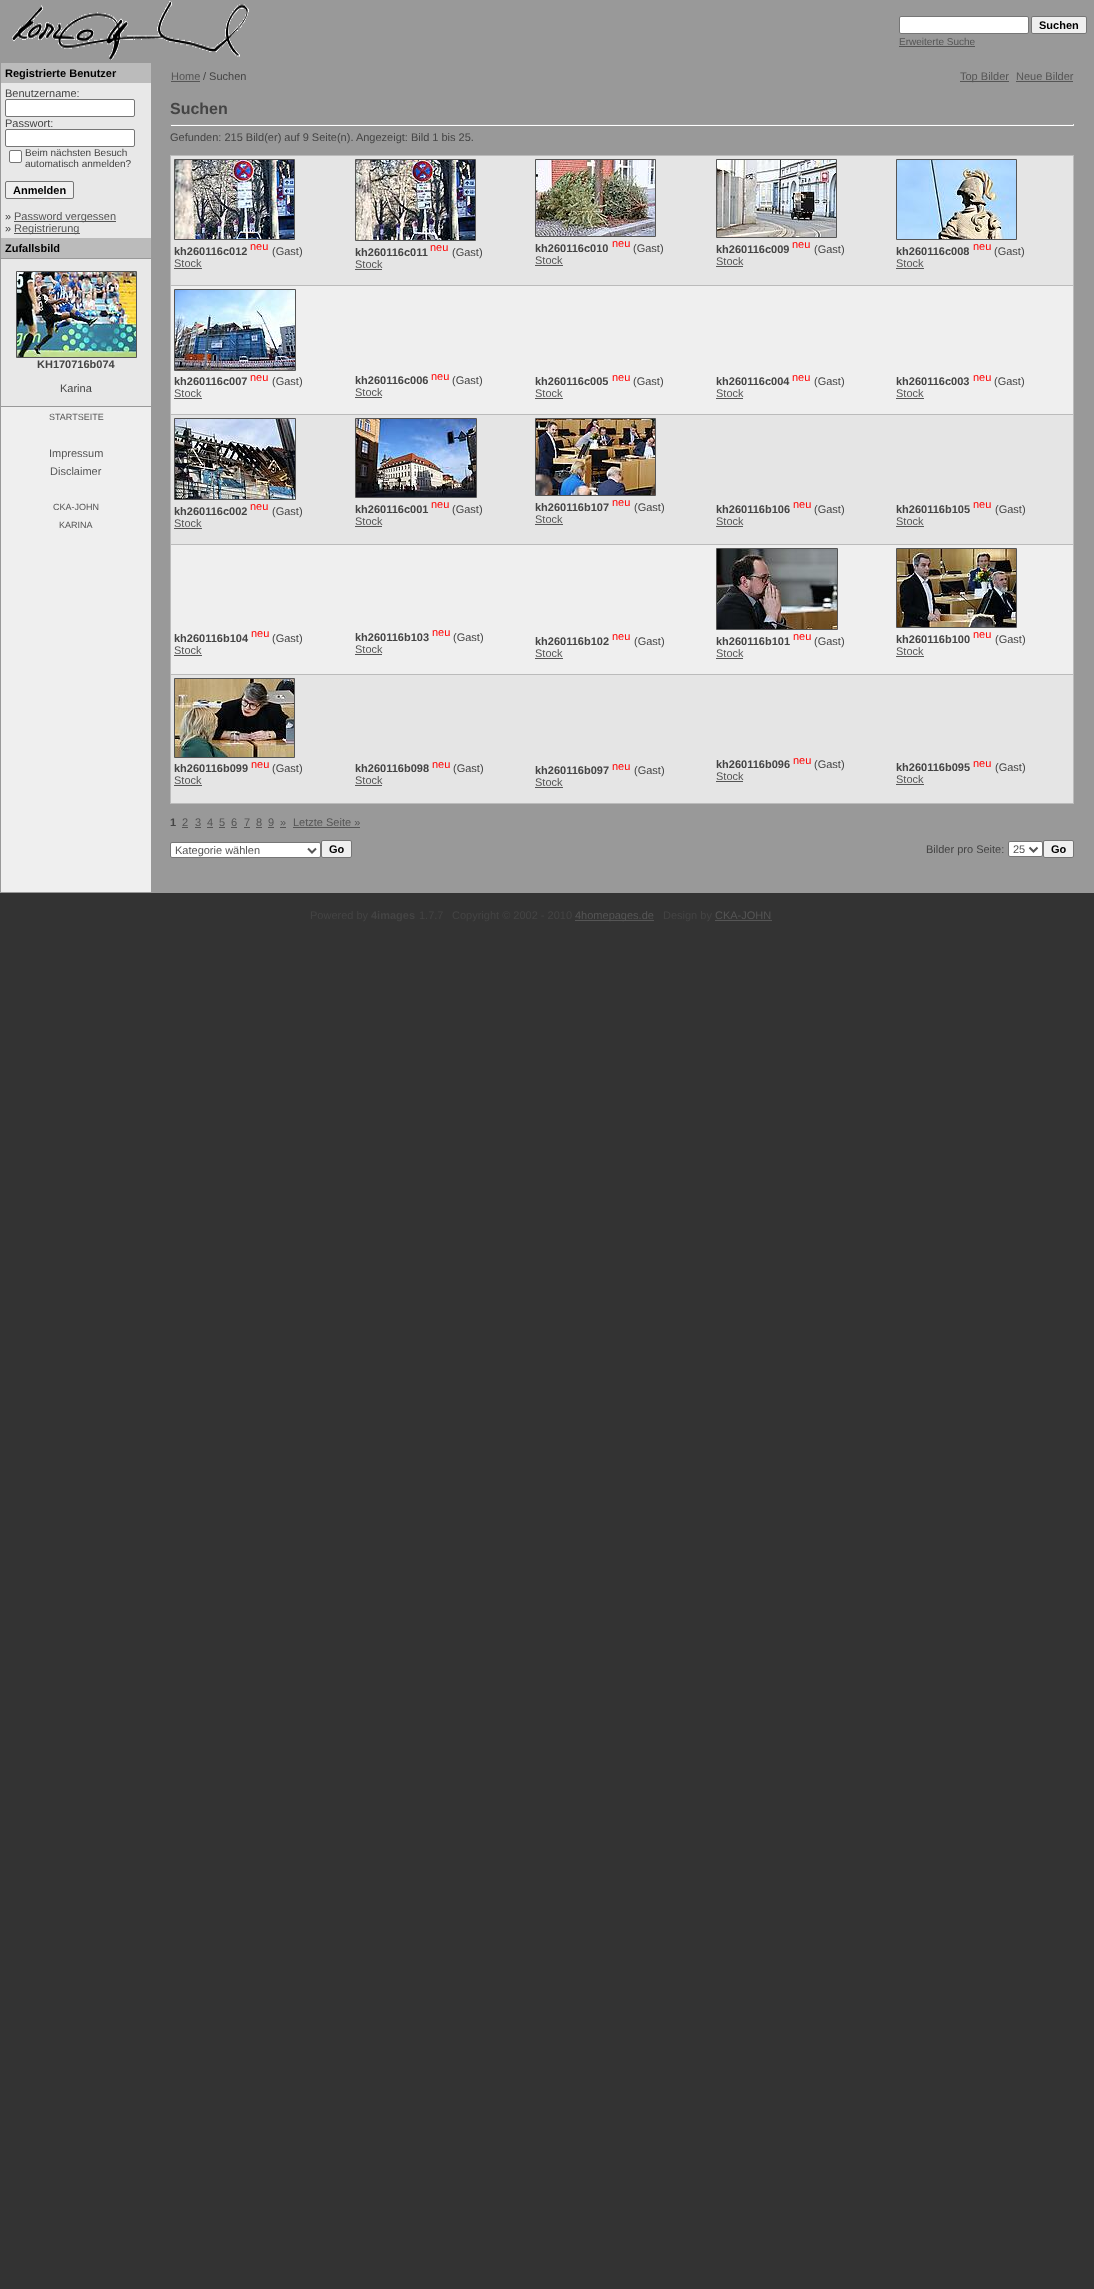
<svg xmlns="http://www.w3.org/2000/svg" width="1094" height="2289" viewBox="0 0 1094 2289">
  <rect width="100%" height="100%" fill="#333"/>
  <path d="M0 0h1094v893H0z" fill="#999"/>
  <image x="12" y="1" width="237" height="59" href="img/1.png"/>
  <rect x="899.5" y="16.5" width="129" height="17" rx="1.5" fill="#fff" stroke="#767676"/>
  <rect x="1031.5" y="16.5" width="55" height="17" rx="1.5" fill="#efefef" stroke="#767676"/>
  <path d="M899 46h76v1H899z" fill="#555"/>
  <path d="M1 407h150v485H1z" fill="#efefef"/>
  <path d="M1 63h150v20H1z" fill="#bbb"/>
  <path d="M1 83h150v155H1z" fill="#e8e8e8"/>
  <rect x="5.5" y="99.5" width="129" height="17" rx="1.5" fill="#fff" stroke="#767676"/>
  <rect x="5.5" y="129.5" width="129" height="17" rx="1.5" fill="#fff" stroke="#767676"/>
  <rect x="9.5" y="150.5" width="12" height="12" rx="1.5" fill="#fff" stroke="#767676"/>
  <rect x="5.5" y="181.5" width="68" height="17" rx="1.5" fill="#efefef" stroke="#767676"/>
  <path d="M14 221h102v1H14z" fill="#555"/>
  <path d="M14 233h66v1H14z" fill="#555"/>
  <path d="M1 238h150v20H1z" fill="#bbb"/>
  <path d="M1 259h150v147H1z" fill="#e8e8e8"/>
  <path d="M16.5 271.5h120v86H16.5z" fill="none" stroke="#555"/>
  <image x="17" y="272" width="119" height="85" href="img/2.png"/>
  <path d="M171 81h29v1H171z" fill="#555"/>
  <path d="M960 81h49v1H960z" fill="#555"/>
  <path d="M1016 81h57v1H1016z" fill="#555"/>
  <path d="M170 125h904v1H170z" fill="#fff"/>
  <path d="M170 124h904v1H170z" fill="#9f9f9f"/>
  <path d="M1073 124h1v2H1073z" fill="#eee"/>
  <path d="M170 124h1v2H170z" fill="#9f9f9f"/>
  <path d="M170 155h904v649H170z" fill="#bbb"/>
  <path d="M171 156h902v129H171z" fill="#e5e5e5"/>
  <path d="M174.5 159.5h120v80H174.5z" fill="none" stroke="#555"/>
  <image x="175" y="160" width="119" height="79" href="img/3.png"/>
  <path d="M174 268h28v1H174z" fill="#555"/>
  <path d="M355.5 159.5h120v81H355.5z" fill="none" stroke="#555"/>
  <image x="356" y="160" width="119" height="80" href="img/4.png"/>
  <path d="M355 269h27v1H355z" fill="#555"/>
  <path d="M535.5 159.5h120v77H535.5z" fill="none" stroke="#555"/>
  <image x="536" y="160" width="119" height="76" href="img/5.png"/>
  <path d="M535 265h28v1H535z" fill="#555"/>
  <path d="M716.5 159.5h120v78H716.5z" fill="none" stroke="#555"/>
  <image x="717" y="160" width="119" height="77" href="img/6.png"/>
  <path d="M716 266h27v1H716z" fill="#555"/>
  <path d="M896.5 159.5h120v80H896.5z" fill="none" stroke="#555"/>
  <image x="897" y="160" width="119" height="79" href="img/7.png"/>
  <path d="M896 268h28v1H896z" fill="#555"/>
  <path d="M171 286h902v128H171z" fill="#efefef"/>
  <path d="M174.5 289.5h121v81H174.5z" fill="none" stroke="#555"/>
  <image x="175" y="290" width="120" height="80" href="img/8.png"/>
  <path d="M174 398h28v1H174z" fill="#555"/>
  <path d="M355 397h27v1H355z" fill="#555"/>
  <path d="M535 398h28v1H535z" fill="#555"/>
  <path d="M716 398h27v1H716z" fill="#555"/>
  <path d="M896 398h28v1H896z" fill="#555"/>
  <path d="M171 415h902v129H171z" fill="#e5e5e5"/>
  <path d="M174.5 418.5h121v81H174.5z" fill="none" stroke="#555"/>
  <image x="175" y="419" width="120" height="80" href="img/9.png"/>
  <path d="M174 528h28v1H174z" fill="#555"/>
  <path d="M355.5 418.5h121v79H355.5z" fill="none" stroke="#555"/>
  <image x="356" y="419" width="120" height="78" href="img/10.png"/>
  <path d="M355 526h27v1H355z" fill="#555"/>
  <path d="M535.5 418.5h120v77H535.5z" fill="none" stroke="#555"/>
  <image x="536" y="419" width="119" height="76" href="img/11.png"/>
  <path d="M535 524h28v1H535z" fill="#555"/>
  <path d="M716 526h27v1H716z" fill="#555"/>
  <path d="M896 526h28v1H896z" fill="#555"/>
  <path d="M171 545h902v129H171z" fill="#efefef"/>
  <path d="M174 655h28v1H174z" fill="#555"/>
  <path d="M355 654h27v1H355z" fill="#555"/>
  <path d="M535 658h28v1H535z" fill="#555"/>
  <path d="M716.5 548.5h121v81H716.5z" fill="none" stroke="#555"/>
  <image x="717" y="549" width="120" height="80" href="img/12.png"/>
  <path d="M716 658h27v1H716z" fill="#555"/>
  <path d="M896.5 548.5h120v79H896.5z" fill="none" stroke="#555"/>
  <image x="897" y="549" width="119" height="78" href="img/13.png"/>
  <path d="M896 656h28v1H896z" fill="#555"/>
  <path d="M171 675h902v128H171z" fill="#e5e5e5"/>
  <path d="M174.5 678.5h120v79H174.5z" fill="none" stroke="#555"/>
  <image x="175" y="679" width="119" height="78" href="img/14.png"/>
  <path d="M174 785h28v1H174z" fill="#555"/>
  <path d="M355 785h27v1H355z" fill="#555"/>
  <path d="M535 787h28v1H535z" fill="#555"/>
  <path d="M716 781h27v1H716z" fill="#555"/>
  <path d="M896 784h28v1H896z" fill="#555"/>
  <path d="M182 827h6v1H182z" fill="#555"/>
  <path d="M195 827h6v1H195z" fill="#555"/>
  <path d="M207 827h6v1H207z" fill="#555"/>
  <path d="M219 827h6v1H219z" fill="#555"/>
  <path d="M231 827h6v1H231z" fill="#555"/>
  <path d="M244 827h6v1H244z" fill="#555"/>
  <path d="M256 827h6v1H256z" fill="#555"/>
  <path d="M268 827h6v1H268z" fill="#555"/>
  <path d="M280 827h6v1H280z" fill="#555"/>
  <path d="M293 827h67v1H293z" fill="#555"/>
  <rect x="170.5" y="842.5" width="150" height="15" rx="1.5" fill="#fff" stroke="#767676"/>
  <path d="M308 848.5L312 852.5L316 848.5" fill="none" stroke="#555" stroke-width="2"/>
  <rect x="321.5" y="840.5" width="30" height="17" rx="1.5" fill="#efefef" stroke="#767676"/>
  <rect x="1008.5" y="841.5" width="34" height="15" rx="1.5" fill="#fff" stroke="#767676"/>
  <path d="M1029.5 847.5L1033.5 851.5L1037.5 847.5" fill="none" stroke="#555" stroke-width="2"/>
  <rect x="1043.5" y="840.5" width="30" height="17" rx="1.5" fill="#efefef" stroke="#767676"/>
  <path d="M575 920h79v1H575z" fill="#555"/>
  <path d="M715 920h57v1H715z" fill="#555"/>
  <text x="1039" y="29" font-family="Liberation Sans" font-size="11" font-weight="bold" fill="#000">Suchen</text>
  <text x="899" y="45" font-family="Liberation Sans" font-size="10" fill="#555">Erweiterte Suche</text>
  <text x="5" y="77" font-family="Liberation Sans" font-size="11" font-weight="bold" fill="#000">Registrierte Benutzer</text>
  <g font-family="Liberation Sans" font-size="11" fill="#444">
    <text x="5" y="97">Benutzername:</text>
    <text x="5" y="127">Passwort:</text>
  </g>
  <g font-family="Liberation Sans" font-size="10" fill="#444">
    <text x="25" y="156">Beim nächsten Besuch</text>
    <text x="25" y="167">automatisch anmelden?</text>
  </g>
  <text x="13" y="194" font-family="Liberation Sans" font-size="11" font-weight="bold" fill="#000">Anmelden</text>
  <text x="5" y="220" font-family="Liberation Sans" font-size="11" fill="#444">»</text>
  <text x="14" y="220" font-family="Liberation Sans" font-size="11" fill="#555">Password vergessen</text>
  <text x="5" y="232" font-family="Liberation Sans" font-size="11" fill="#444">»</text>
  <text x="14" y="232" font-family="Liberation Sans" font-size="11" fill="#555">Registrierung</text>
  <text x="5" y="252" font-family="Liberation Sans" font-size="11" font-weight="bold" fill="#000">Zufallsbild</text>
  <text x="37" y="368" font-family="Liberation Sans" font-size="11" font-weight="bold" fill="#444">KH170716b074</text>
  <text x="60" y="392" font-family="Liberation Sans" font-size="11" fill="#444">Karina</text>
  <text x="49" y="420" font-family="Liberation Sans" font-size="9" fill="#555">STARTSEITE</text>
  <g font-family="Liberation Sans" font-size="11" fill="#555">
    <text x="49" y="457">Impressum</text>
    <text x="50" y="475">Disclaimer</text>
  </g>
  <g font-family="Liberation Sans" font-size="9" fill="#555">
    <text x="53" y="510">CKA-JOHN</text>
    <text x="59" y="528">KARINA</text>
  </g>
  <text x="171" y="80" font-family="Liberation Sans" font-size="11" fill="#555">Home</text>
  <text x="203" y="80" font-family="Liberation Sans" font-size="11" fill="#444">/ Suchen</text>
  <g font-family="Liberation Sans" font-size="11" fill="#555">
    <text x="960" y="80">Top Bilder</text>
    <text x="1016" y="80">Neue Bilder</text>
  </g>
  <text x="170" y="114" font-family="Liberation Sans" font-size="16" font-weight="bold" fill="#444">Suchen</text>
  <text x="170" y="141" font-family="Liberation Sans" font-size="11" fill="#444">Gefunden: 215 Bild(er) auf 9 Seite(n). Angezeigt: Bild 1 bis 25.</text>
  <text x="174" y="255" font-family="Liberation Sans" font-size="11" font-weight="bold" fill="#444">kh260116c012</text>
  <text x="250" y="250" font-family="Liberation Sans" font-size="11" fill="#f00">neu</text>
  <text x="272" y="255" font-family="Liberation Sans" font-size="11" fill="#444">(Gast)</text>
  <text x="174" y="267" font-family="Liberation Sans" font-size="11" fill="#555">Stock</text>
  <text x="355" y="256" font-family="Liberation Sans" font-size="11" font-weight="bold" fill="#444">kh260116c011</text>
  <text x="430" y="251" font-family="Liberation Sans" font-size="11" fill="#f00">neu</text>
  <text x="452" y="256" font-family="Liberation Sans" font-size="11" fill="#444">(Gast)</text>
  <text x="355" y="268" font-family="Liberation Sans" font-size="11" fill="#555">Stock</text>
  <text x="535" y="252" font-family="Liberation Sans" font-size="11" font-weight="bold" fill="#444">kh260116c010</text>
  <text x="612" y="247" font-family="Liberation Sans" font-size="11" fill="#f00">neu</text>
  <text x="633" y="252" font-family="Liberation Sans" font-size="11" fill="#444">(Gast)</text>
  <text x="535" y="264" font-family="Liberation Sans" font-size="11" fill="#555">Stock</text>
  <text x="716" y="253" font-family="Liberation Sans" font-size="11" font-weight="bold" fill="#444">kh260116c009</text>
  <text x="792" y="248" font-family="Liberation Sans" font-size="11" fill="#f00">neu</text>
  <text x="814" y="253" font-family="Liberation Sans" font-size="11" fill="#444">(Gast)</text>
  <text x="716" y="265" font-family="Liberation Sans" font-size="11" fill="#555">Stock</text>
  <text x="896" y="255" font-family="Liberation Sans" font-size="11" font-weight="bold" fill="#444">kh260116c008</text>
  <text x="973" y="250" font-family="Liberation Sans" font-size="11" fill="#f00">neu</text>
  <text x="994" y="255" font-family="Liberation Sans" font-size="11" fill="#444">(Gast)</text>
  <text x="896" y="267" font-family="Liberation Sans" font-size="11" fill="#555">Stock</text>
  <text x="174" y="385" font-family="Liberation Sans" font-size="11" font-weight="bold" fill="#444">kh260116c007</text>
  <text x="250" y="381" font-family="Liberation Sans" font-size="11" fill="#f00">neu</text>
  <text x="272" y="385" font-family="Liberation Sans" font-size="11" fill="#444">(Gast)</text>
  <text x="174" y="397" font-family="Liberation Sans" font-size="11" fill="#555">Stock</text>
  <text x="355" y="384" font-family="Liberation Sans" font-size="11" font-weight="bold" fill="#444">kh260116c006</text>
  <text x="431" y="380" font-family="Liberation Sans" font-size="11" fill="#f00">neu</text>
  <text x="452" y="384" font-family="Liberation Sans" font-size="11" fill="#444">(Gast)</text>
  <text x="355" y="396" font-family="Liberation Sans" font-size="11" fill="#555">Stock</text>
  <text x="535" y="385" font-family="Liberation Sans" font-size="11" font-weight="bold" fill="#444">kh260116c005</text>
  <text x="612" y="381" font-family="Liberation Sans" font-size="11" fill="#f00">neu</text>
  <text x="633" y="385" font-family="Liberation Sans" font-size="11" fill="#444">(Gast)</text>
  <text x="535" y="397" font-family="Liberation Sans" font-size="11" fill="#555">Stock</text>
  <text x="716" y="385" font-family="Liberation Sans" font-size="11" font-weight="bold" fill="#444">kh260116c004</text>
  <text x="792" y="381" font-family="Liberation Sans" font-size="11" fill="#f00">neu</text>
  <text x="814" y="385" font-family="Liberation Sans" font-size="11" fill="#444">(Gast)</text>
  <text x="716" y="397" font-family="Liberation Sans" font-size="11" fill="#555">Stock</text>
  <text x="896" y="385" font-family="Liberation Sans" font-size="11" font-weight="bold" fill="#444">kh260116c003</text>
  <text x="973" y="381" font-family="Liberation Sans" font-size="11" fill="#f00">neu</text>
  <text x="994" y="385" font-family="Liberation Sans" font-size="11" fill="#444">(Gast)</text>
  <text x="896" y="397" font-family="Liberation Sans" font-size="11" fill="#555">Stock</text>
  <text x="174" y="515" font-family="Liberation Sans" font-size="11" font-weight="bold" fill="#444">kh260116c002</text>
  <text x="250" y="510" font-family="Liberation Sans" font-size="11" fill="#f00">neu</text>
  <text x="272" y="515" font-family="Liberation Sans" font-size="11" fill="#444">(Gast)</text>
  <text x="174" y="527" font-family="Liberation Sans" font-size="11" fill="#555">Stock</text>
  <text x="355" y="513" font-family="Liberation Sans" font-size="11" font-weight="bold" fill="#444">kh260116c001</text>
  <text x="431" y="508" font-family="Liberation Sans" font-size="11" fill="#f00">neu</text>
  <text x="452" y="513" font-family="Liberation Sans" font-size="11" fill="#444">(Gast)</text>
  <text x="355" y="525" font-family="Liberation Sans" font-size="11" fill="#555">Stock</text>
  <text x="535" y="511" font-family="Liberation Sans" font-size="11" font-weight="bold" fill="#444">kh260116b107</text>
  <text x="612" y="506" font-family="Liberation Sans" font-size="11" fill="#f00">neu</text>
  <text x="634" y="511" font-family="Liberation Sans" font-size="11" fill="#444">(Gast)</text>
  <text x="535" y="523" font-family="Liberation Sans" font-size="11" fill="#555">Stock</text>
  <text x="716" y="513" font-family="Liberation Sans" font-size="11" font-weight="bold" fill="#444">kh260116b106</text>
  <text x="793" y="508" font-family="Liberation Sans" font-size="11" fill="#f00">neu</text>
  <text x="814" y="513" font-family="Liberation Sans" font-size="11" fill="#444">(Gast)</text>
  <text x="716" y="525" font-family="Liberation Sans" font-size="11" fill="#555">Stock</text>
  <text x="896" y="513" font-family="Liberation Sans" font-size="11" font-weight="bold" fill="#444">kh260116b105</text>
  <text x="973" y="508" font-family="Liberation Sans" font-size="11" fill="#f00">neu</text>
  <text x="995" y="513" font-family="Liberation Sans" font-size="11" fill="#444">(Gast)</text>
  <text x="896" y="525" font-family="Liberation Sans" font-size="11" fill="#555">Stock</text>
  <text x="174" y="642" font-family="Liberation Sans" font-size="11" font-weight="bold" fill="#444">kh260116b104</text>
  <text x="251" y="637" font-family="Liberation Sans" font-size="11" fill="#f00">neu</text>
  <text x="272" y="642" font-family="Liberation Sans" font-size="11" fill="#444">(Gast)</text>
  <text x="174" y="654" font-family="Liberation Sans" font-size="11" fill="#555">Stock</text>
  <text x="355" y="641" font-family="Liberation Sans" font-size="11" font-weight="bold" fill="#444">kh260116b103</text>
  <text x="432" y="636" font-family="Liberation Sans" font-size="11" fill="#f00">neu</text>
  <text x="453" y="641" font-family="Liberation Sans" font-size="11" fill="#444">(Gast)</text>
  <text x="355" y="653" font-family="Liberation Sans" font-size="11" fill="#555">Stock</text>
  <text x="535" y="645" font-family="Liberation Sans" font-size="11" font-weight="bold" fill="#444">kh260116b102</text>
  <text x="612" y="640" font-family="Liberation Sans" font-size="11" fill="#f00">neu</text>
  <text x="634" y="645" font-family="Liberation Sans" font-size="11" fill="#444">(Gast)</text>
  <text x="535" y="657" font-family="Liberation Sans" font-size="11" fill="#555">Stock</text>
  <text x="716" y="645" font-family="Liberation Sans" font-size="11" font-weight="bold" fill="#444">kh260116b101</text>
  <text x="793" y="640" font-family="Liberation Sans" font-size="11" fill="#f00">neu</text>
  <text x="814" y="645" font-family="Liberation Sans" font-size="11" fill="#444">(Gast)</text>
  <text x="716" y="657" font-family="Liberation Sans" font-size="11" fill="#555">Stock</text>
  <text x="896" y="643" font-family="Liberation Sans" font-size="11" font-weight="bold" fill="#444">kh260116b100</text>
  <text x="973" y="638" font-family="Liberation Sans" font-size="11" fill="#f00">neu</text>
  <text x="995" y="643" font-family="Liberation Sans" font-size="11" fill="#444">(Gast)</text>
  <text x="896" y="655" font-family="Liberation Sans" font-size="11" fill="#555">Stock</text>
  <text x="174" y="772" font-family="Liberation Sans" font-size="11" font-weight="bold" fill="#444">kh260116b099</text>
  <text x="251" y="768" font-family="Liberation Sans" font-size="11" fill="#f00">neu</text>
  <text x="272" y="772" font-family="Liberation Sans" font-size="11" fill="#444">(Gast)</text>
  <text x="174" y="784" font-family="Liberation Sans" font-size="11" fill="#555">Stock</text>
  <text x="355" y="772" font-family="Liberation Sans" font-size="11" font-weight="bold" fill="#444">kh260116b098</text>
  <text x="432" y="768" font-family="Liberation Sans" font-size="11" fill="#f00">neu</text>
  <text x="453" y="772" font-family="Liberation Sans" font-size="11" fill="#444">(Gast)</text>
  <text x="355" y="784" font-family="Liberation Sans" font-size="11" fill="#555">Stock</text>
  <text x="535" y="774" font-family="Liberation Sans" font-size="11" font-weight="bold" fill="#444">kh260116b097</text>
  <text x="612" y="770" font-family="Liberation Sans" font-size="11" fill="#f00">neu</text>
  <text x="634" y="774" font-family="Liberation Sans" font-size="11" fill="#444">(Gast)</text>
  <text x="535" y="786" font-family="Liberation Sans" font-size="11" fill="#555">Stock</text>
  <text x="716" y="768" font-family="Liberation Sans" font-size="11" font-weight="bold" fill="#444">kh260116b096</text>
  <text x="793" y="764" font-family="Liberation Sans" font-size="11" fill="#f00">neu</text>
  <text x="814" y="768" font-family="Liberation Sans" font-size="11" fill="#444">(Gast)</text>
  <text x="716" y="780" font-family="Liberation Sans" font-size="11" fill="#555">Stock</text>
  <text x="896" y="771" font-family="Liberation Sans" font-size="11" font-weight="bold" fill="#444">kh260116b095</text>
  <text x="973" y="767" font-family="Liberation Sans" font-size="11" fill="#f00">neu</text>
  <text x="995" y="771" font-family="Liberation Sans" font-size="11" fill="#444">(Gast)</text>
  <text x="896" y="783" font-family="Liberation Sans" font-size="11" fill="#555">Stock</text>
  <text x="170" y="826" font-family="Liberation Sans" font-size="11" font-weight="bold" fill="#444">1</text>
  <g font-family="Liberation Sans" font-size="11" fill="#555">
    <text x="182" y="826">2</text>
    <text x="195" y="826">3</text>
    <text x="207" y="826">4</text>
    <text x="219" y="826">5</text>
    <text x="231" y="826">6</text>
    <text x="244" y="826">7</text>
    <text x="256" y="826">8</text>
    <text x="268" y="826">9</text>
    <text x="280" y="826">»</text>
    <text x="293" y="826">Letzte Seite »</text>
    <text x="175" y="854">Kategorie wählen</text>
  </g>
  <text x="329" y="853" font-family="Liberation Sans" font-size="11" font-weight="bold" fill="#000">Go</text>
  <text x="926" y="853" font-family="Liberation Sans" font-size="11" fill="#444">Bilder pro Seite:</text>
  <text x="1013" y="853" font-family="Liberation Sans" font-size="11" fill="#555">25</text>
  <text x="1051" y="853" font-family="Liberation Sans" font-size="11" font-weight="bold" fill="#000">Go</text>
  <text x="310" y="919" font-family="Liberation Sans" font-size="11" fill="#444">Powered by</text>
  <text x="371" y="919" font-family="Liberation Sans" font-size="11" font-weight="bold" fill="#444">4images</text>
  <g font-family="Liberation Sans" font-size="11" fill="#444">
    <text x="419" y="919">1.7.7</text>
    <text x="452" y="919">Copyright © 2002 - 2010</text>
  </g>
  <text x="575" y="919" font-family="Liberation Sans" font-size="11" fill="#555">4homepages.de</text>
  <text x="663" y="919" font-family="Liberation Sans" font-size="11" fill="#444">Design by</text>
  <text x="715" y="919" font-family="Liberation Sans" font-size="11" fill="#555">CKA-JOHN</text>
</svg>
